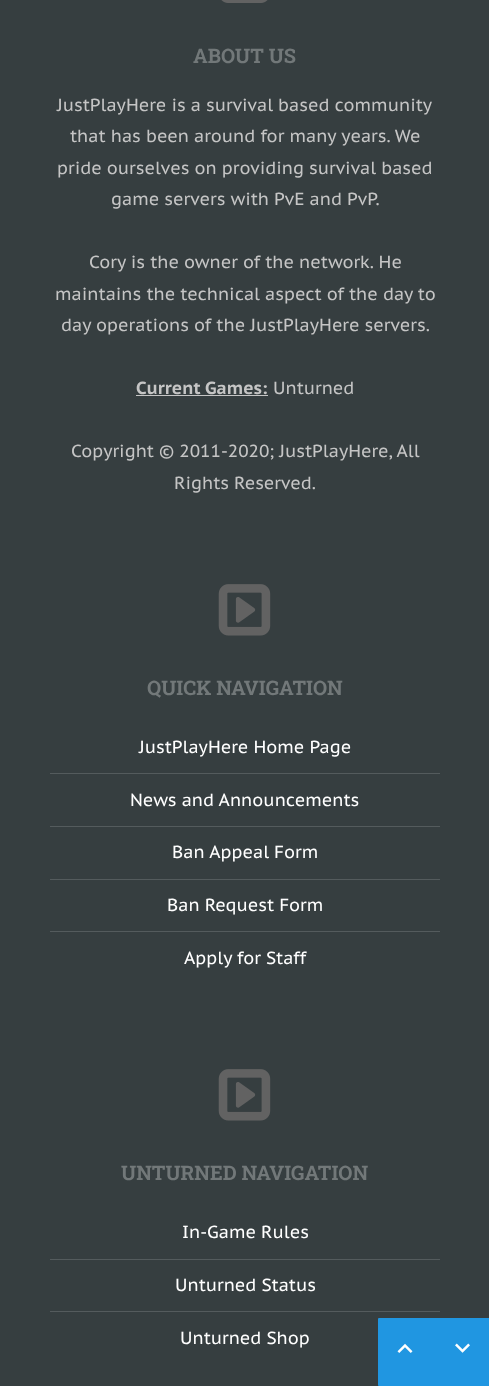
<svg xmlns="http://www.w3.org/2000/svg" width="489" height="1386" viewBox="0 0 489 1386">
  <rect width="100%" height="100%" fill="#363e40"/>
  <image x="221" y="0" width="47" height="3" href="img/1.png"/>
  <path d="M136 395h132v1H136z" fill="#c5c5c5"/>
  <image x="218" y="584" width="53" height="52" href="img/2.png"/>
  <path d="M50 773h390v1H50z" fill="#545b5d"/>
  <path d="M50 826h390v1H50z" fill="#545b5d"/>
  <path d="M50 879h390v1H50z" fill="#545b5d"/>
  <path d="M50 931h390v1H50z" fill="#545b5d"/>
  <image x="218" y="1069" width="53" height="52" href="img/2.png"/>
  <path d="M50 1259h390v1H50z" fill="#545b5d"/>
  <path d="M50 1311h390v1H50z" fill="#545b5d"/>
  <rect x="378" y="1318" width="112" height="68" rx="1" fill="#2096e1"/>
  <image x="397" y="1343" width="16" height="10" href="img/3.png"/>
  <image x="455" y="1343" width="15" height="10" href="img/4.png"/>
  <text x="193" y="63" font-family="Roboto Slab" font-size="20" font-weight="bold" fill="#727879">ABOUT US</text>
  <g font-family="PT Sans Caption" font-size="17.5" fill="#c5c5c5">
    <text x="57" y="111">JustPlayHere is a survival based community</text>
    <text x="70" y="142">that has been around for many years. We</text>
    <text x="57" y="174">pride ourselves on providing survival based</text>
    <text x="111" y="205">game servers with PvE and PvP.</text>
    <text x="89" y="268">Cory is the owner of the network. He</text>
    <text x="55" y="300">maintains the technical aspect of the day to</text>
    <text x="61" y="331">day operations of the JustPlayHere servers.</text>
  </g>
  <text x="136" y="394" font-family="PT Sans Caption" font-size="17.5" font-weight="bold" fill="#c5c5c5">Current Games:</text>
  <g font-family="PT Sans Caption" font-size="17.5" fill="#c5c5c5">
    <text x="273" y="394">Unturned</text>
    <text x="71" y="457">Copyright © 2011-2020; JustPlayHere, All</text>
    <text x="174" y="489">Rights Reserved.</text>
  </g>
  <text x="147" y="695" font-family="Roboto Slab" font-size="20" font-weight="bold" fill="#727879">QUICK NAVIGATION</text>
  <g font-family="PT Sans Caption" font-size="17.5" fill="#fff">
    <text x="139" y="753">JustPlayHere Home Page</text>
    <text x="130" y="806">News and Announcements</text>
    <text x="172" y="858">Ban Appeal Form</text>
    <text x="167" y="911">Ban Request Form</text>
    <text x="184" y="964">Apply for Staff</text>
  </g>
  <text x="121" y="1180" font-family="Roboto Slab" font-size="20" font-weight="bold" fill="#727879">UNTURNED NAVIGATION</text>
  <g font-family="PT Sans Caption" font-size="17.5" fill="#fff">
    <text x="182" y="1238">In-Game Rules</text>
    <text x="175" y="1291">Unturned Status</text>
    <text x="180" y="1344">Unturned Shop</text>
  </g>
</svg>
